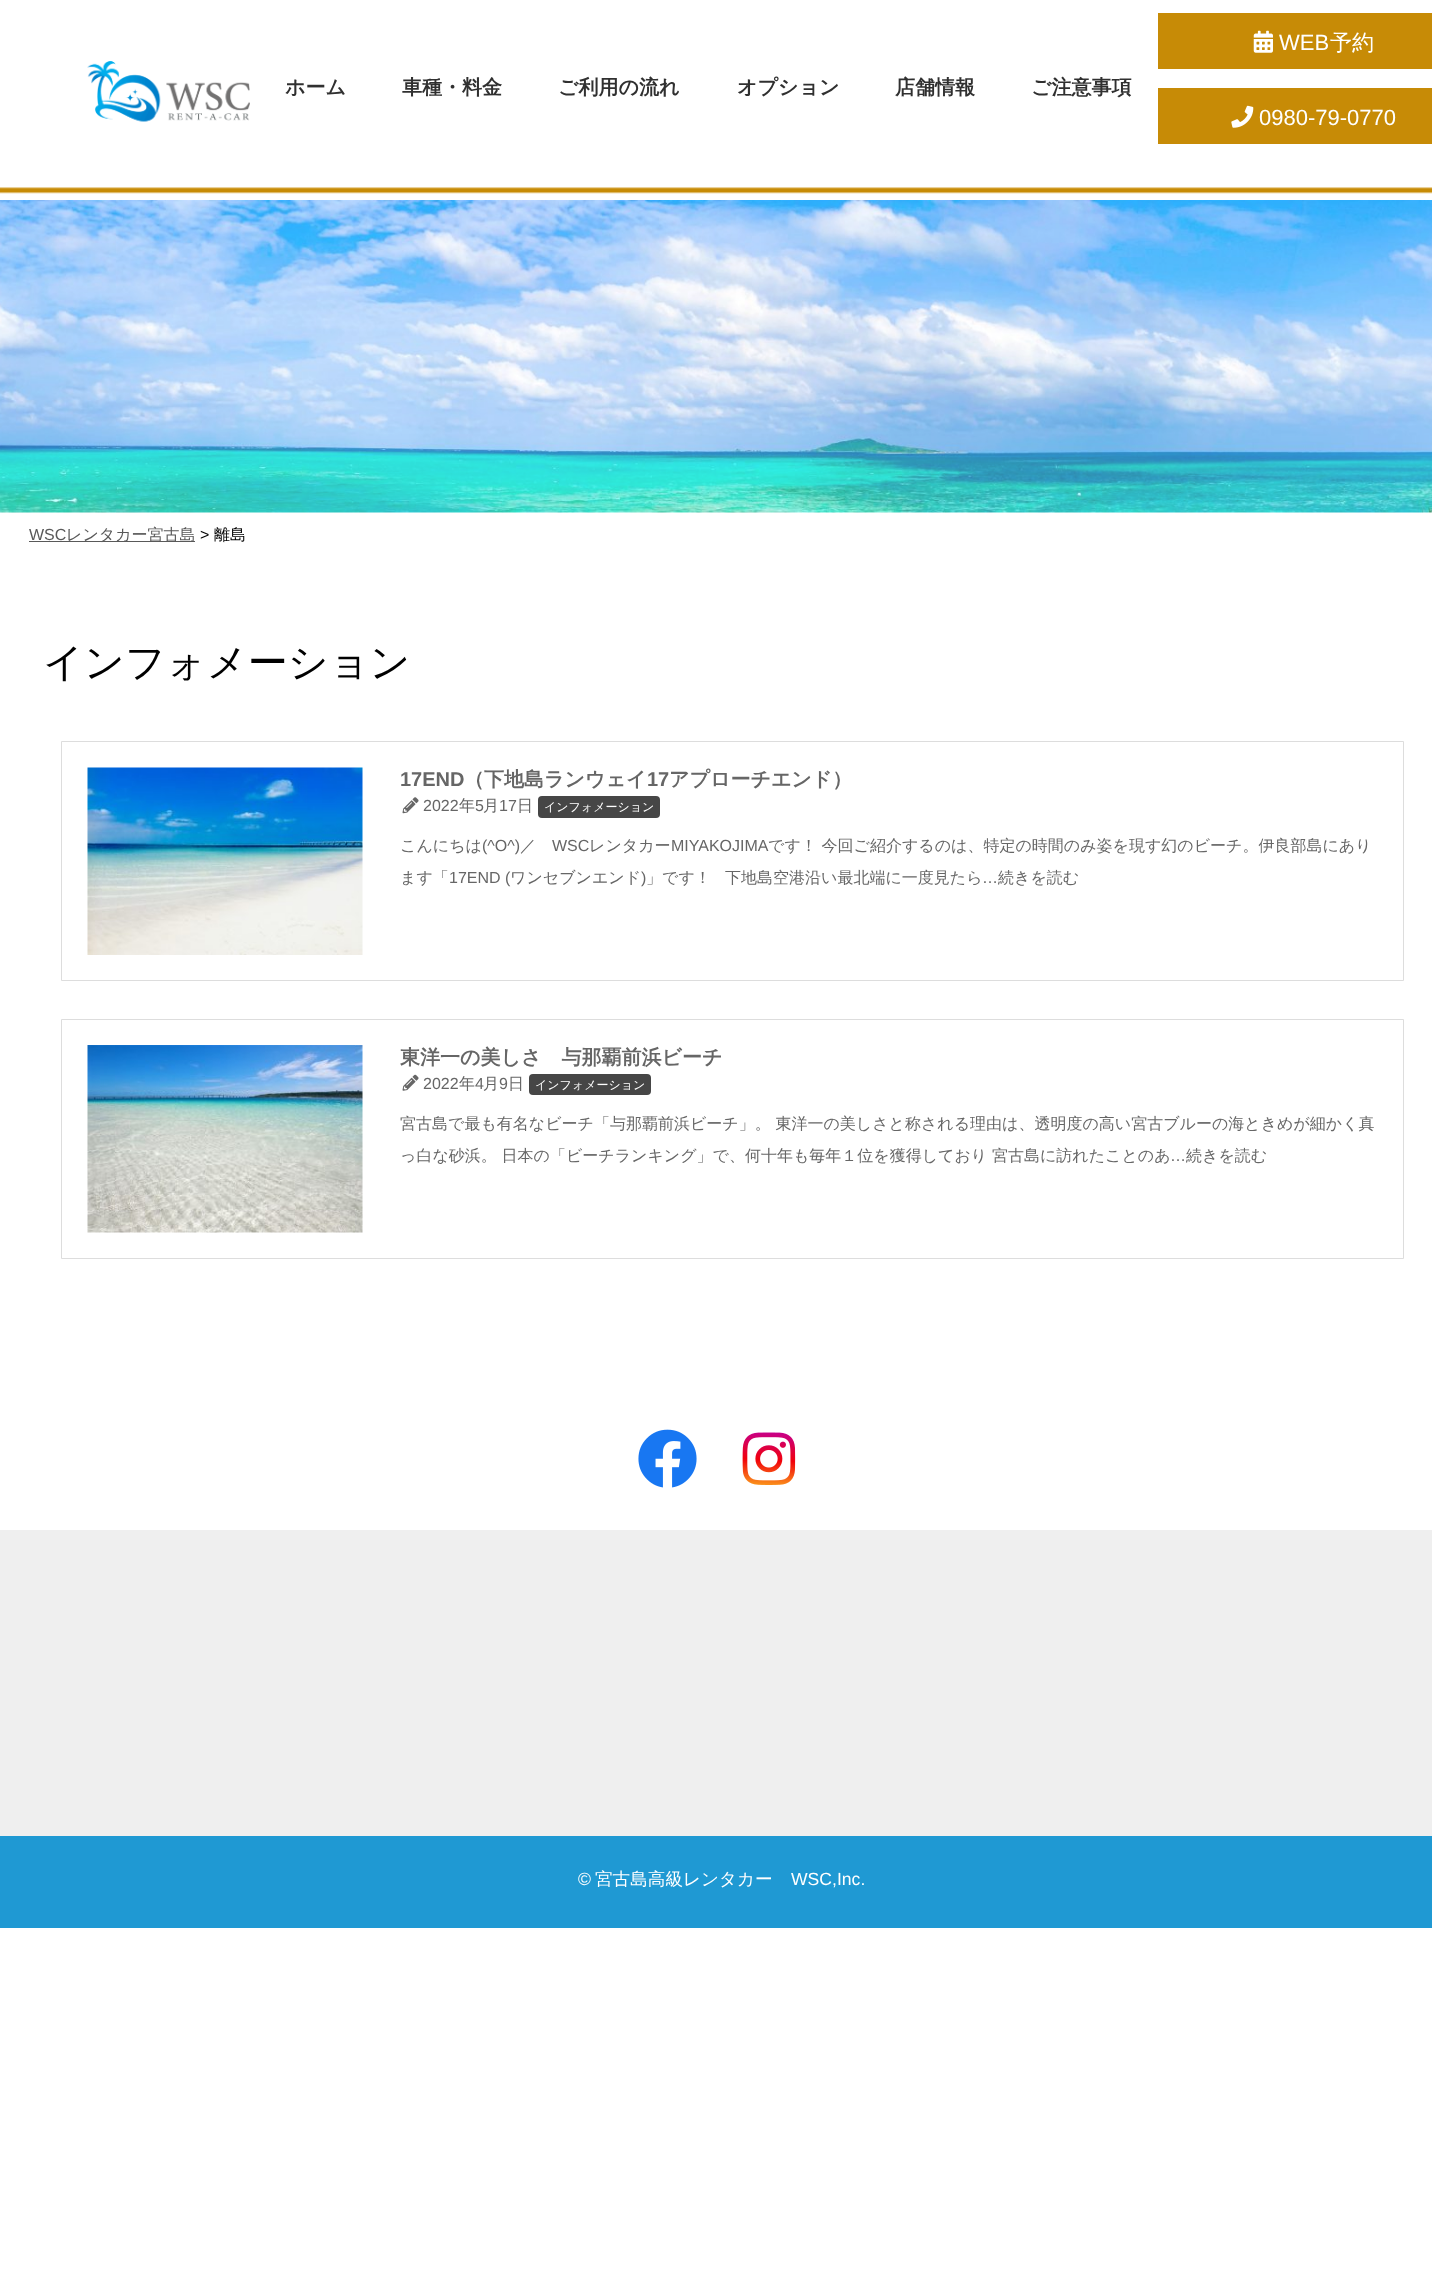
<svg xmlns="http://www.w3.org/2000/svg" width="1432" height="2292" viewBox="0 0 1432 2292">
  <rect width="100%" height="100%" fill="#fff"/>
  <image x="0" y="187" width="1432" height="7" href="img/1.png"/>
  <path d="M1158 13h274v56H1158z" fill="#c78b06"/>
  <image x="1253" y="30" width="20" height="23" href="img/2.png"/>
  <image x="87" y="61" width="163" height="61" href="img/3.png"/>
  <path d="M1158 88h274v56H1158z" fill="#c78b06"/>
  <image x="1231" y="105" width="23" height="23" href="img/4.png"/>
  <image x="0" y="200" width="1432" height="313" href="img/5.png"/>
  <path d="M29 541h166v1H29z" fill="#595959"/>
  <path d="M61.5 741.5h1342v239H61.5z" fill="none" stroke="#ddd"/>
  <image x="87" y="767" width="276" height="188" href="img/6.png"/>
  <image x="402" y="797" width="17" height="17" href="img/7.png"/>
  <rect x="538" y="796" width="122" height="22" rx="4" fill="#464646"/>
  <path d="M61.5 1019.5h1342v239H61.5z" fill="none" stroke="#ddd"/>
  <image x="87" y="1045" width="276" height="188" href="img/8.png"/>
  <image x="402" y="1074" width="17" height="17" href="img/9.png"/>
  <rect x="529" y="1074" width="122" height="21" rx="4" fill="#464646"/>
  <path d="M0 1530h1432v306H0z" fill="#efefef"/>
  <image x="638" y="1429" width="59" height="59" href="img/10.png"/>
  <image x="742" y="1432" width="54" height="53" href="img/11.png"/>
  <path d="M0 1836h1432v92H0z" fill="#1f99d3"/>
  <text x="1279" y="50" font-family="Liberation Sans" font-size="22" fill="#fff">WEB</text>
  <text x="1330" y="50" font-family="WenQuanYi Zen Hei" font-size="22" font-weight="500" fill="#fff">予約</text>
  <g font-family="WenQuanYi Zen Hei" font-size="20" font-weight="bold" fill="#303030">
    <text x="285" y="94">ホーム</text>
    <text x="402" y="94">車種・料金</text>
    <text x="558" y="94">ご利用の流れ</text>
    <text x="737" y="94">オプション</text>
    <text x="895" y="94">店舗情報</text>
    <text x="1031" y="94">ご注意事項</text>
  </g>
  <text x="1259" y="125" font-family="Liberation Sans" font-size="22" fill="#fff">0980-79-0770</text>
  <text x="29" y="540" font-family="Liberation Sans" font-size="16" fill="#595959">WSC</text>
  <text x="66" y="540" font-family="WenQuanYi Zen Hei" font-size="16" font-weight="500" fill="#595959">レンタカー宮古島</text>
  <text x="200" y="540" font-family="Liberation Sans" font-size="16" fill="#000">&gt;</text>
  <text x="214" y="540" font-family="WenQuanYi Zen Hei" font-size="16" font-weight="500" fill="#000">離島</text>
  <text x="43" y="676" font-family="WenQuanYi Zen Hei" font-size="40" font-weight="500" fill="#000">インフォメーション</text>
  <text x="400" y="786" font-family="Liberation Sans" font-size="20" font-weight="bold" fill="#666">17END</text>
  <text x="464" y="786" font-family="WenQuanYi Zen Hei" font-size="20" font-weight="bold" fill="#666">（下地島ランウェイ</text>
  <text x="647" y="786" font-family="Liberation Sans" font-size="20" font-weight="bold" fill="#666">17</text>
  <text x="669" y="786" font-family="WenQuanYi Zen Hei" font-size="20" font-weight="bold" fill="#666">アプローチエンド）</text>
  <text x="423" y="811" font-family="Liberation Sans" font-size="16" fill="#666">2022</text>
  <text x="459" y="811" font-family="WenQuanYi Zen Hei" font-size="16" font-weight="500" fill="#666">年</text>
  <text x="475" y="811" font-family="Liberation Sans" font-size="16" fill="#666">5</text>
  <text x="483" y="811" font-family="WenQuanYi Zen Hei" font-size="16" font-weight="500" fill="#666">月</text>
  <text x="499" y="811" font-family="Liberation Sans" font-size="16" fill="#666">17</text>
  <text x="517" y="811" font-family="WenQuanYi Zen Hei" font-size="16" font-weight="500" fill="#666">日</text>
  <text x="544" y="811" font-family="WenQuanYi Zen Hei" font-size="12" font-weight="500" fill="#fff">インフォメーション</text>
  <text x="400" y="851" font-family="WenQuanYi Zen Hei" font-size="16" font-weight="500" fill="#666">こんにちは</text>
  <text x="482" y="851" font-family="Liberation Sans" font-size="16" fill="#666">(^O^)</text>
  <text x="520" y="851" font-family="WenQuanYi Zen Hei" font-size="16" font-weight="500" fill="#666">／</text>
  <text x="552" y="851" font-family="Liberation Sans" font-size="16" fill="#666">WSC</text>
  <text x="589" y="851" font-family="WenQuanYi Zen Hei" font-size="16" font-weight="500" fill="#666">レンタカー</text>
  <text x="671" y="851" font-family="Liberation Sans" font-size="16" fill="#666">MIYAKOJIMA</text>
  <g font-family="WenQuanYi Zen Hei" font-size="16" font-weight="500" fill="#666">
    <text x="768" y="851">です！ 今回ご紹介するのは、特定の時間のみ姿を現す幻のビーチ。伊良部島にあり</text>
    <text x="400" y="883">ます「</text>
  </g>
  <text x="449" y="883" font-family="Liberation Sans" font-size="16" fill="#666">17END (</text>
  <text x="510" y="883" font-family="WenQuanYi Zen Hei" font-size="16" font-weight="500" fill="#666">ワンセブンエンド</text>
  <text x="641" y="883" font-family="Liberation Sans" font-size="16" fill="#666">)</text>
  <g font-family="WenQuanYi Zen Hei" font-size="16" font-weight="500" fill="#666">
    <text x="646" y="883">」です！</text>
    <text x="725" y="883">下地島空港沿い最北端に一度見たら</text>
  </g>
  <text x="982" y="883" font-family="Liberation Sans" font-size="16" fill="#666">…</text>
  <text x="998" y="883" font-family="WenQuanYi Zen Hei" font-size="16" font-weight="500" fill="#666">続きを読む</text>
  <text x="400" y="1064" font-family="WenQuanYi Zen Hei" font-size="20" font-weight="bold" fill="#666">東洋一の美しさ　与那覇前浜ビーチ</text>
  <text x="423" y="1089" font-family="Liberation Sans" font-size="16" fill="#666">2022</text>
  <text x="459" y="1089" font-family="WenQuanYi Zen Hei" font-size="16" font-weight="500" fill="#666">年</text>
  <text x="475" y="1089" font-family="Liberation Sans" font-size="16" fill="#666">4</text>
  <text x="483" y="1089" font-family="WenQuanYi Zen Hei" font-size="16" font-weight="500" fill="#666">月</text>
  <text x="499" y="1089" font-family="Liberation Sans" font-size="16" fill="#666">9</text>
  <text x="508" y="1089" font-family="WenQuanYi Zen Hei" font-size="16" font-weight="500" fill="#666">日</text>
  <text x="535" y="1089" font-family="WenQuanYi Zen Hei" font-size="12" font-weight="500" fill="#fff">インフォメーション</text>
  <g font-family="WenQuanYi Zen Hei" font-size="16" font-weight="500" fill="#666">
    <text x="400" y="1129">宮古島で最も有名なビーチ「与那覇前浜ビーチ」。 東洋一の美しさと称される理由は、透明度の高い宮古ブルーの海ときめが細かく真</text>
    <text x="400" y="1161">っ白な砂浜。 日本の「ビーチランキング」で、何十年も毎年１位を獲得しており 宮古島に訪れたことのあ</text>
  </g>
  <text x="1170" y="1161" font-family="Liberation Sans" font-size="16" fill="#666">…</text>
  <text x="1186" y="1161" font-family="WenQuanYi Zen Hei" font-size="16" font-weight="500" fill="#666">続きを読む</text>
  <text x="578" y="1885" font-family="Liberation Sans" font-size="17.6" fill="#fff">©</text>
  <text x="595" y="1885" font-family="WenQuanYi Zen Hei" font-size="17.6" font-weight="500" fill="#fff">宮古島高級レンタカー</text>
  <text x="791" y="1885" font-family="Liberation Sans" font-size="17.6" fill="#fff">WSC,Inc.</text>
</svg>
